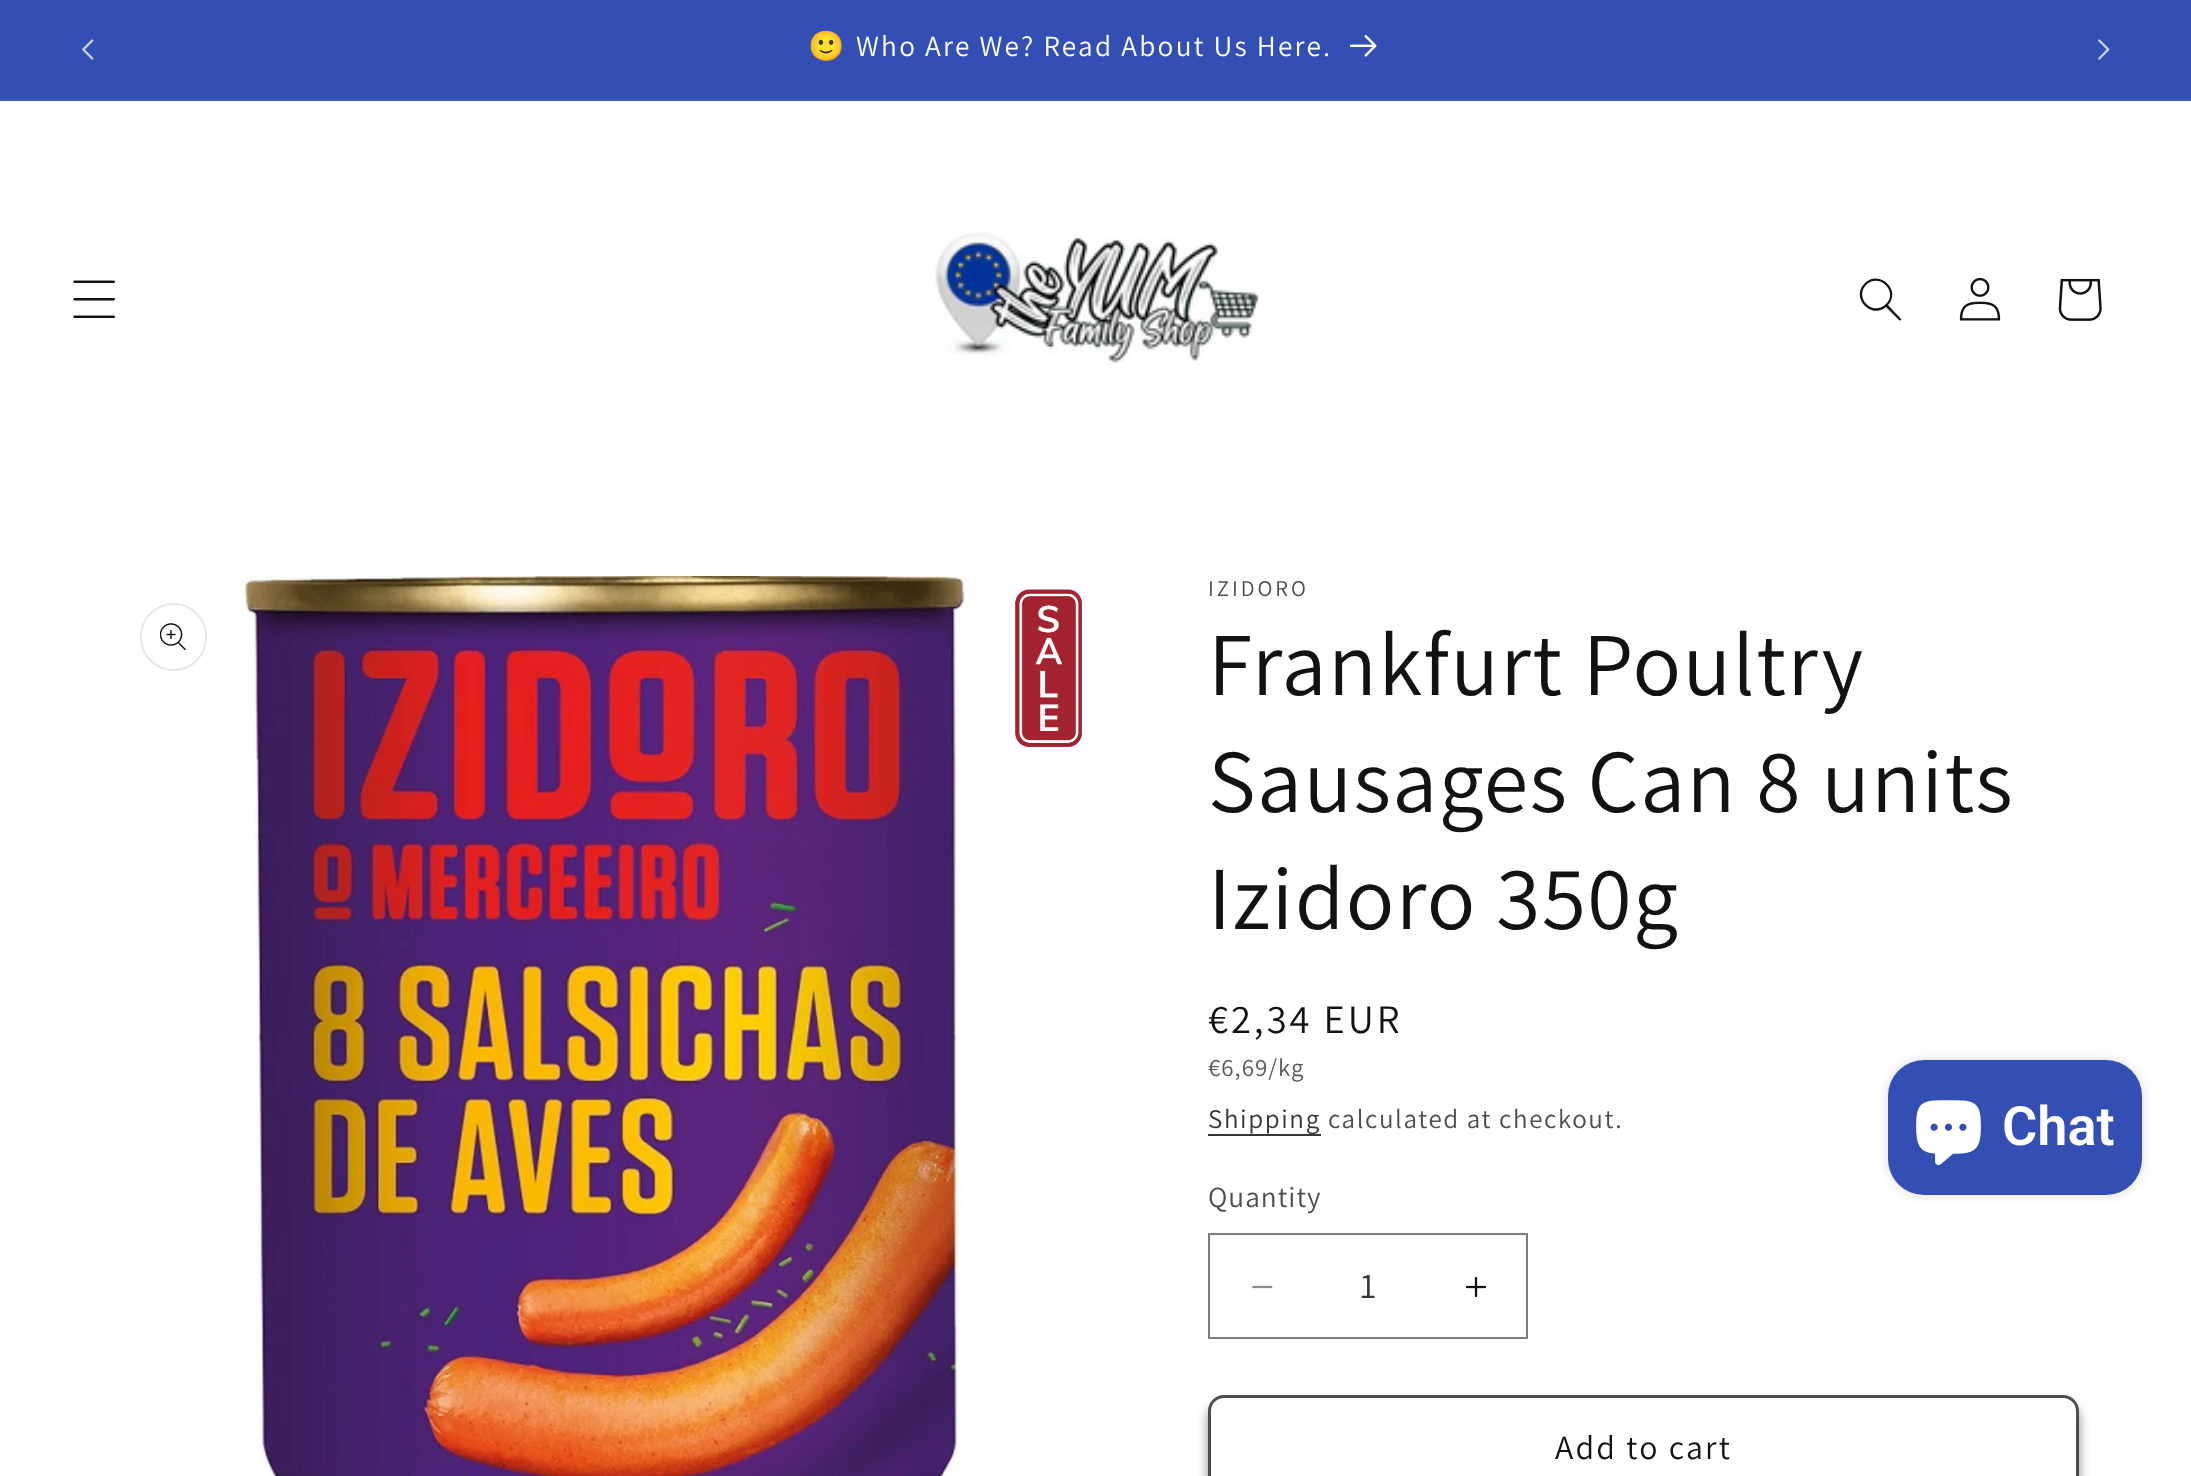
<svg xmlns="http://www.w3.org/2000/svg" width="2191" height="1476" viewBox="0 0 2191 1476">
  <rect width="100%" height="100%" fill="#fff"/>
  <path d="M0 0h2191v99H0z" fill="#334fb4"/>
  <path d="M0 99h2191v2H0z" fill="#435dba"/>
  <image x="82" y="39" width="12" height="21" href="img/1.png"/>
  <image x="1350" y="35" width="27" height="22" href="img/2.png"/>
  <image x="2098" y="39" width="12" height="21" href="img/3.png"/>
  <image x="73" y="280" width="42" height="38" href="img/4.png"/>
  <image x="934" y="232" width="325" height="131" href="img/5.png"/>
  <path d="M1886 304C1873 317 1854 298 1866 285C1879 272 1899 292 1886 304M1886 307C1871 320 1850 297 1865 283C1879 269 1902 290 1888 305L1901 319C1902 320 1900 321 1899 320Z" fill="#121212" fill-rule="evenodd"/>
  <image x="1959" y="277" width="42" height="44" href="img/6.png"/>
  <image x="2058" y="278" width="44" height="43" href="img/7.png"/>
  <rect x="141" y="604" width="65" height="66" rx="32.5" fill="none" stroke="#e7e7e7" stroke-width="2"/>
  <image x="160" y="623" width="26" height="28" href="img/8.png"/>
  <image x="241" y="576" width="725" height="900" href="img/9.png"/>
  <image x="1015" y="589" width="68" height="158" href="img/10.png"/>
  <path d="M1208 1134h113v2H1208z" fill="#363636"/>
  <image x="1252" y="1285" width="21" height="4" href="img/11.png"/>
  <image x="1465" y="1276" width="22" height="22" href="img/12.png"/>
  <path d="M1209 1234h318v104H1209z" fill="none" stroke="#7d7d7d" stroke-width="2"/>
  <rect x="1208" y="1404" width="871" height="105" rx="16" fill="#12121280" filter="blur(5.5px)"/>
  <rect x="1208" y="1395" width="871" height="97" rx="16" fill="#fff"/>
  <rect x="1209" y="1396" width="869" height="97" rx="15" fill="none" stroke="#fff" stroke-width="2"/>
  <rect x="1209.5" y="1396.5" width="868" height="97" rx="14.5" fill="none" stroke="#4d4d4d" stroke-width="3"/>
  <rect x="1888" y="1060" width="254" height="135" rx="36" fill="#00000026" filter="blur(5.5px)"/>
  <rect x="1888" y="1060" width="254" height="135" rx="36" fill="#334fb4"/>
  <image x="1916" y="1100" width="65" height="65" href="img/13.png"/>
  <text x="808" y="56" font-family="Noto Color Emoji" font-size="29.25" letter-spacing="2.25" fill="#fff">🙂️</text>
  <text x="856" y="56" word-spacing="-0.25" font-family="Assistant" font-size="29.25" letter-spacing="2.25" fill="#fff">Who Are We? Read About Us Here.</text>
  <text x="1208" y="596" font-family="Assistant" font-size="22.5" letter-spacing="3" fill="#4d4d4d">IZIDORO</text>
  <g font-family="Assistant" font-size="90" letter-spacing="1.35" fill="#121212">
    <text x="1208" y="695">Frankfurt Poultry</text>
    <text x="1208" y="812">Sausages Can 8 units</text>
    <text x="1208" y="929">Izidoro 350g</text>
  </g>
  <text x="1208" y="1033" font-family="Assistant" font-size="40.5" letter-spacing="3" fill="#121212">€2,34 EUR</text>
  <text x="1208" y="1076" font-family="Assistant" font-size="25" letter-spacing="1" fill="#595959">€6,69/kg</text>
  <text x="1208" y="1128" font-family="Assistant" font-size="27" letter-spacing="1.6" fill="#353535">Shipping</text>
  <text x="1328" y="1128" font-family="Assistant" font-size="27" letter-spacing="1.6" fill="#4d4d4d">calculated at checkout.</text>
  <text x="1208" y="1207" font-family="Assistant" font-size="29.25" letter-spacing="1" fill="#4d4d4d">Quantity</text>
  <text x="1360" y="1298" font-family="Assistant" font-size="36" fill="#353535">1</text>
  <text x="1555" y="1459" font-family="Assistant" font-size="33.75" letter-spacing="2.25" fill="#121212">Add to cart</text>
  <text x="2002" y="1145" font-family="Roboto" font-size="54" font-weight="600" fill="#fff">Chat</text>
</svg>
